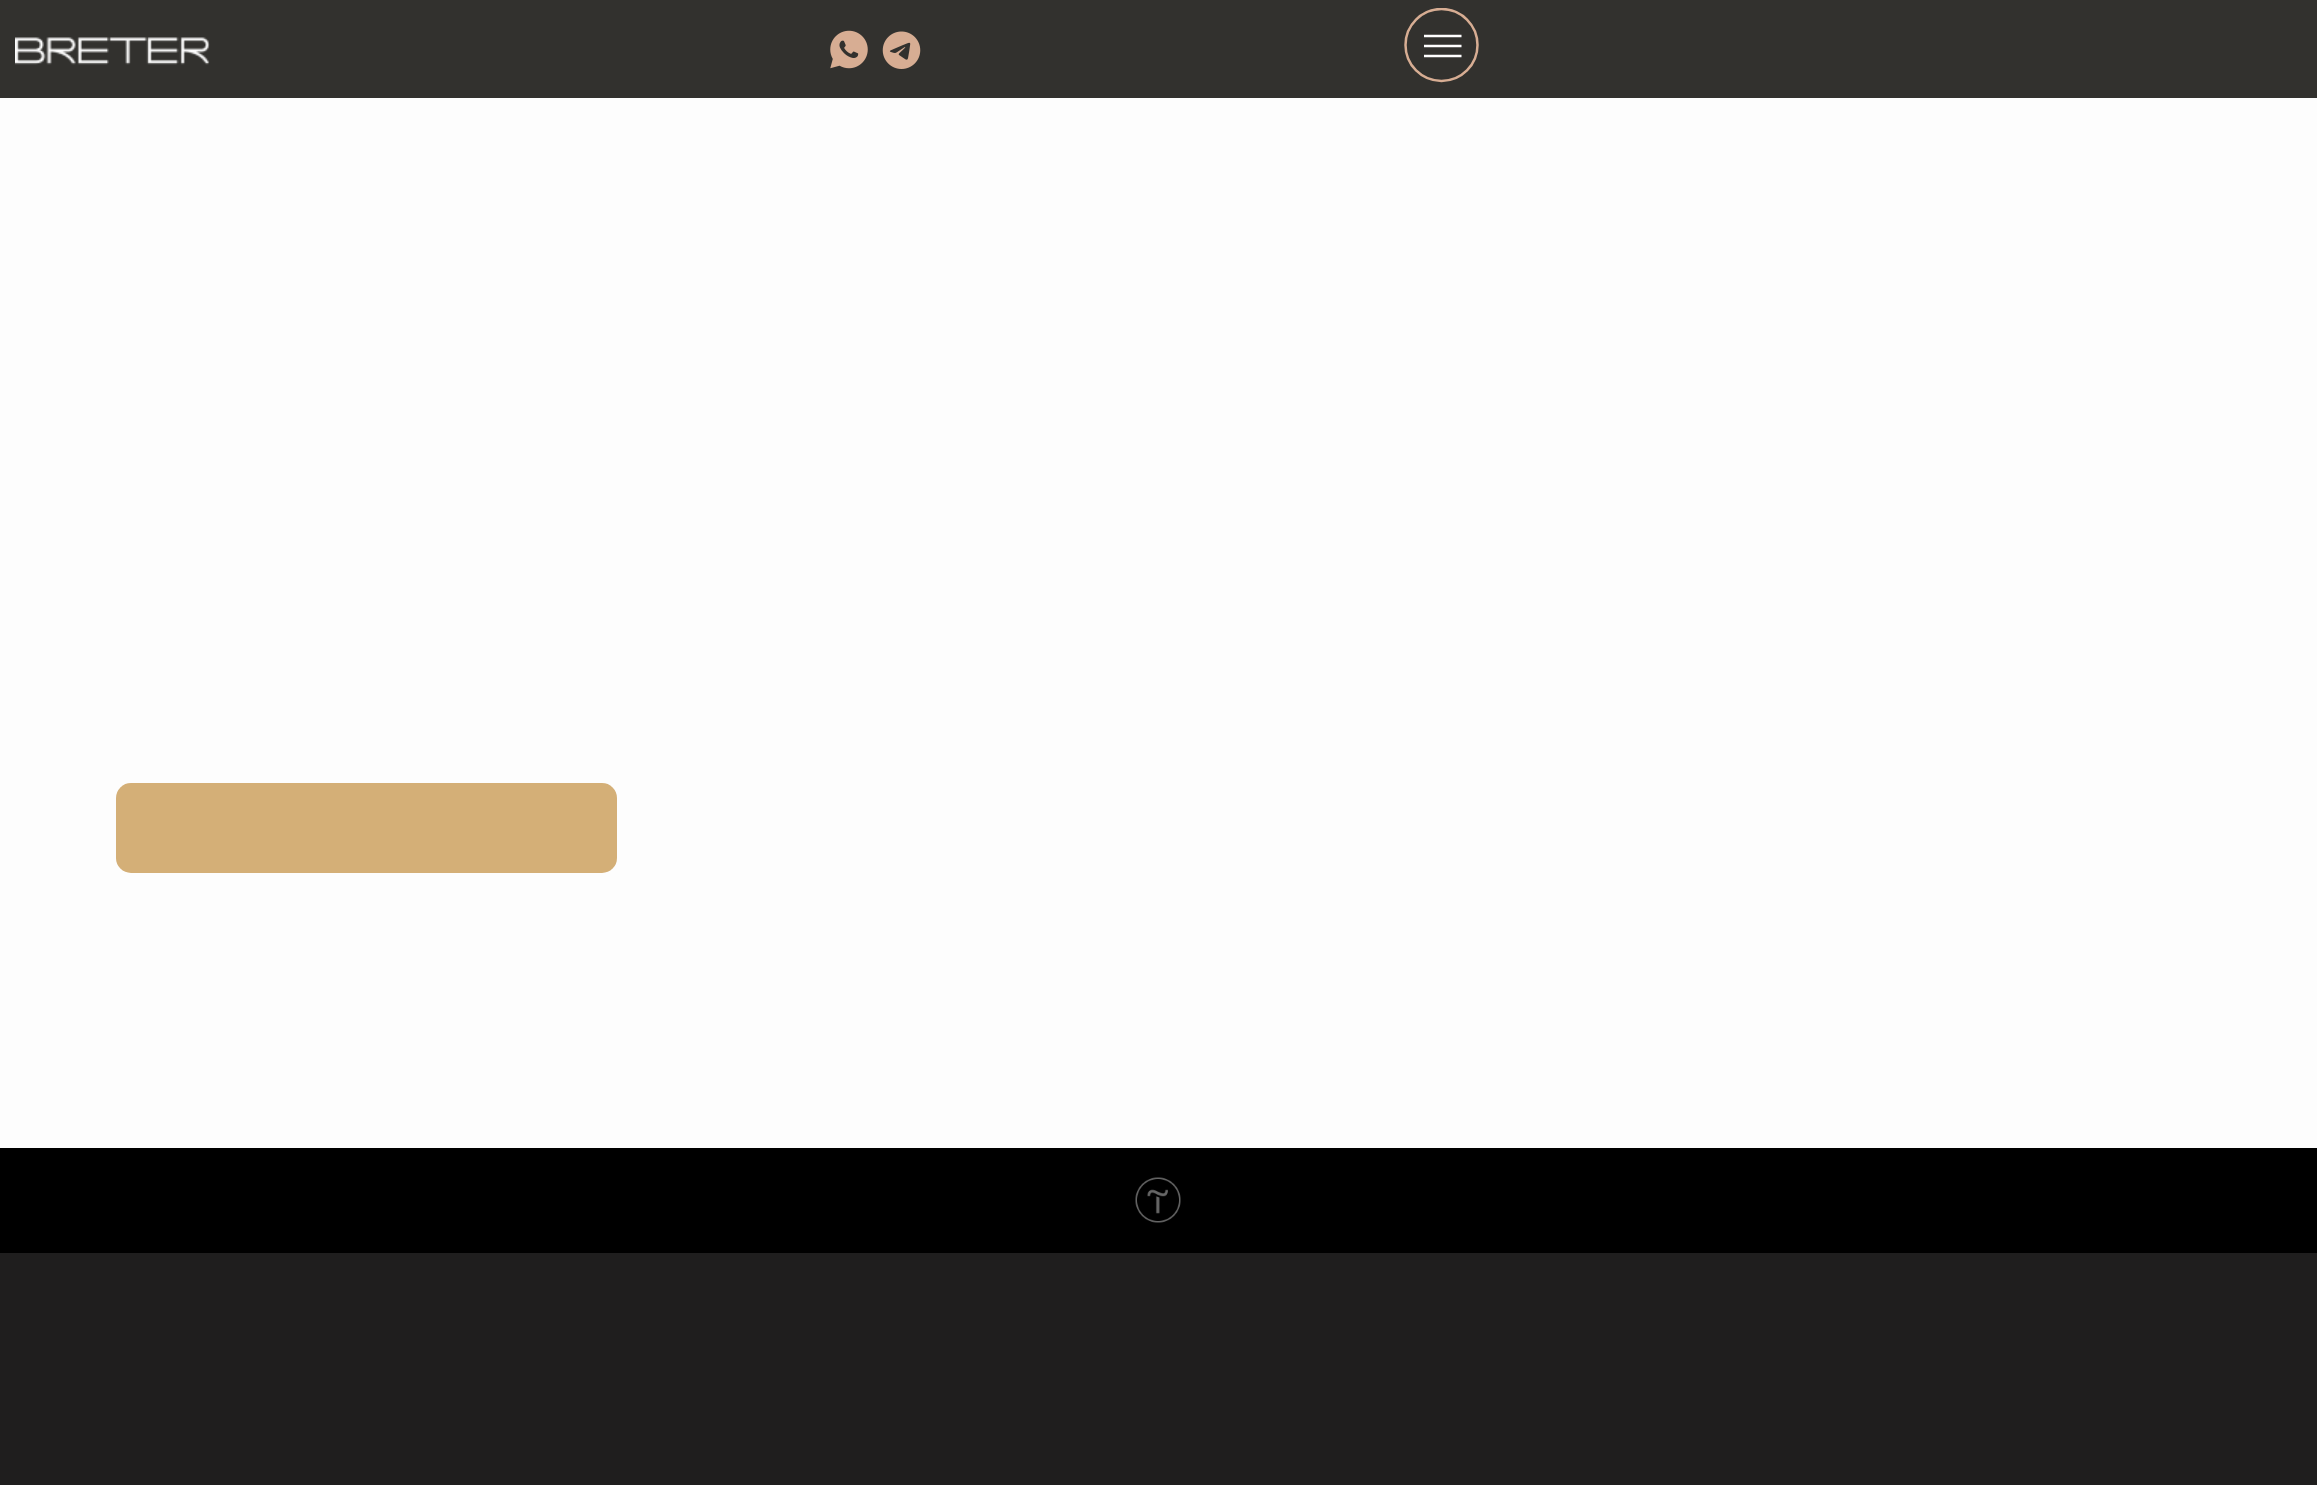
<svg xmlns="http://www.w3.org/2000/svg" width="2317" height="1485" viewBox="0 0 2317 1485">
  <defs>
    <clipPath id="clip1"><path d="M1404 8h75v75H1404z"/></clipPath>
  </defs>
  <rect width="100%" height="100%" fill="#1f1e1e"/>
  <path d="M0 0h2317v98H0z" fill="#32312e"/>
  <image x="15" y="37" width="195" height="28" href="img/1.png"/>
  <image x="830" y="30" width="38" height="39" href="img/2.png"/>
  <image x="882" y="31" width="39" height="38" href="img/3.png"/>
  <path d="M1424 46H1461.5M1424 56H1461.5M1424 36H1461.5" fill="none" stroke="#fff" stroke-width="2.5"/>
  <g clip-path="url(#clip1)">
    <circle cx="1441.5" cy="45" r="36" fill="none" stroke="#d7ad93" stroke-width="2.5"/>
  </g>
  <path d="M0 98h2317v1050H0z" fill="#fdfdfd"/>
  <rect x="116" y="783" width="501" height="90" rx="15" fill="#d4af77"/>
  <path d="M0 1148h2317v105H0z" fill="#000"/>
  <image x="1135" y="1177" width="46" height="46" href="img/4.png"/>
</svg>
